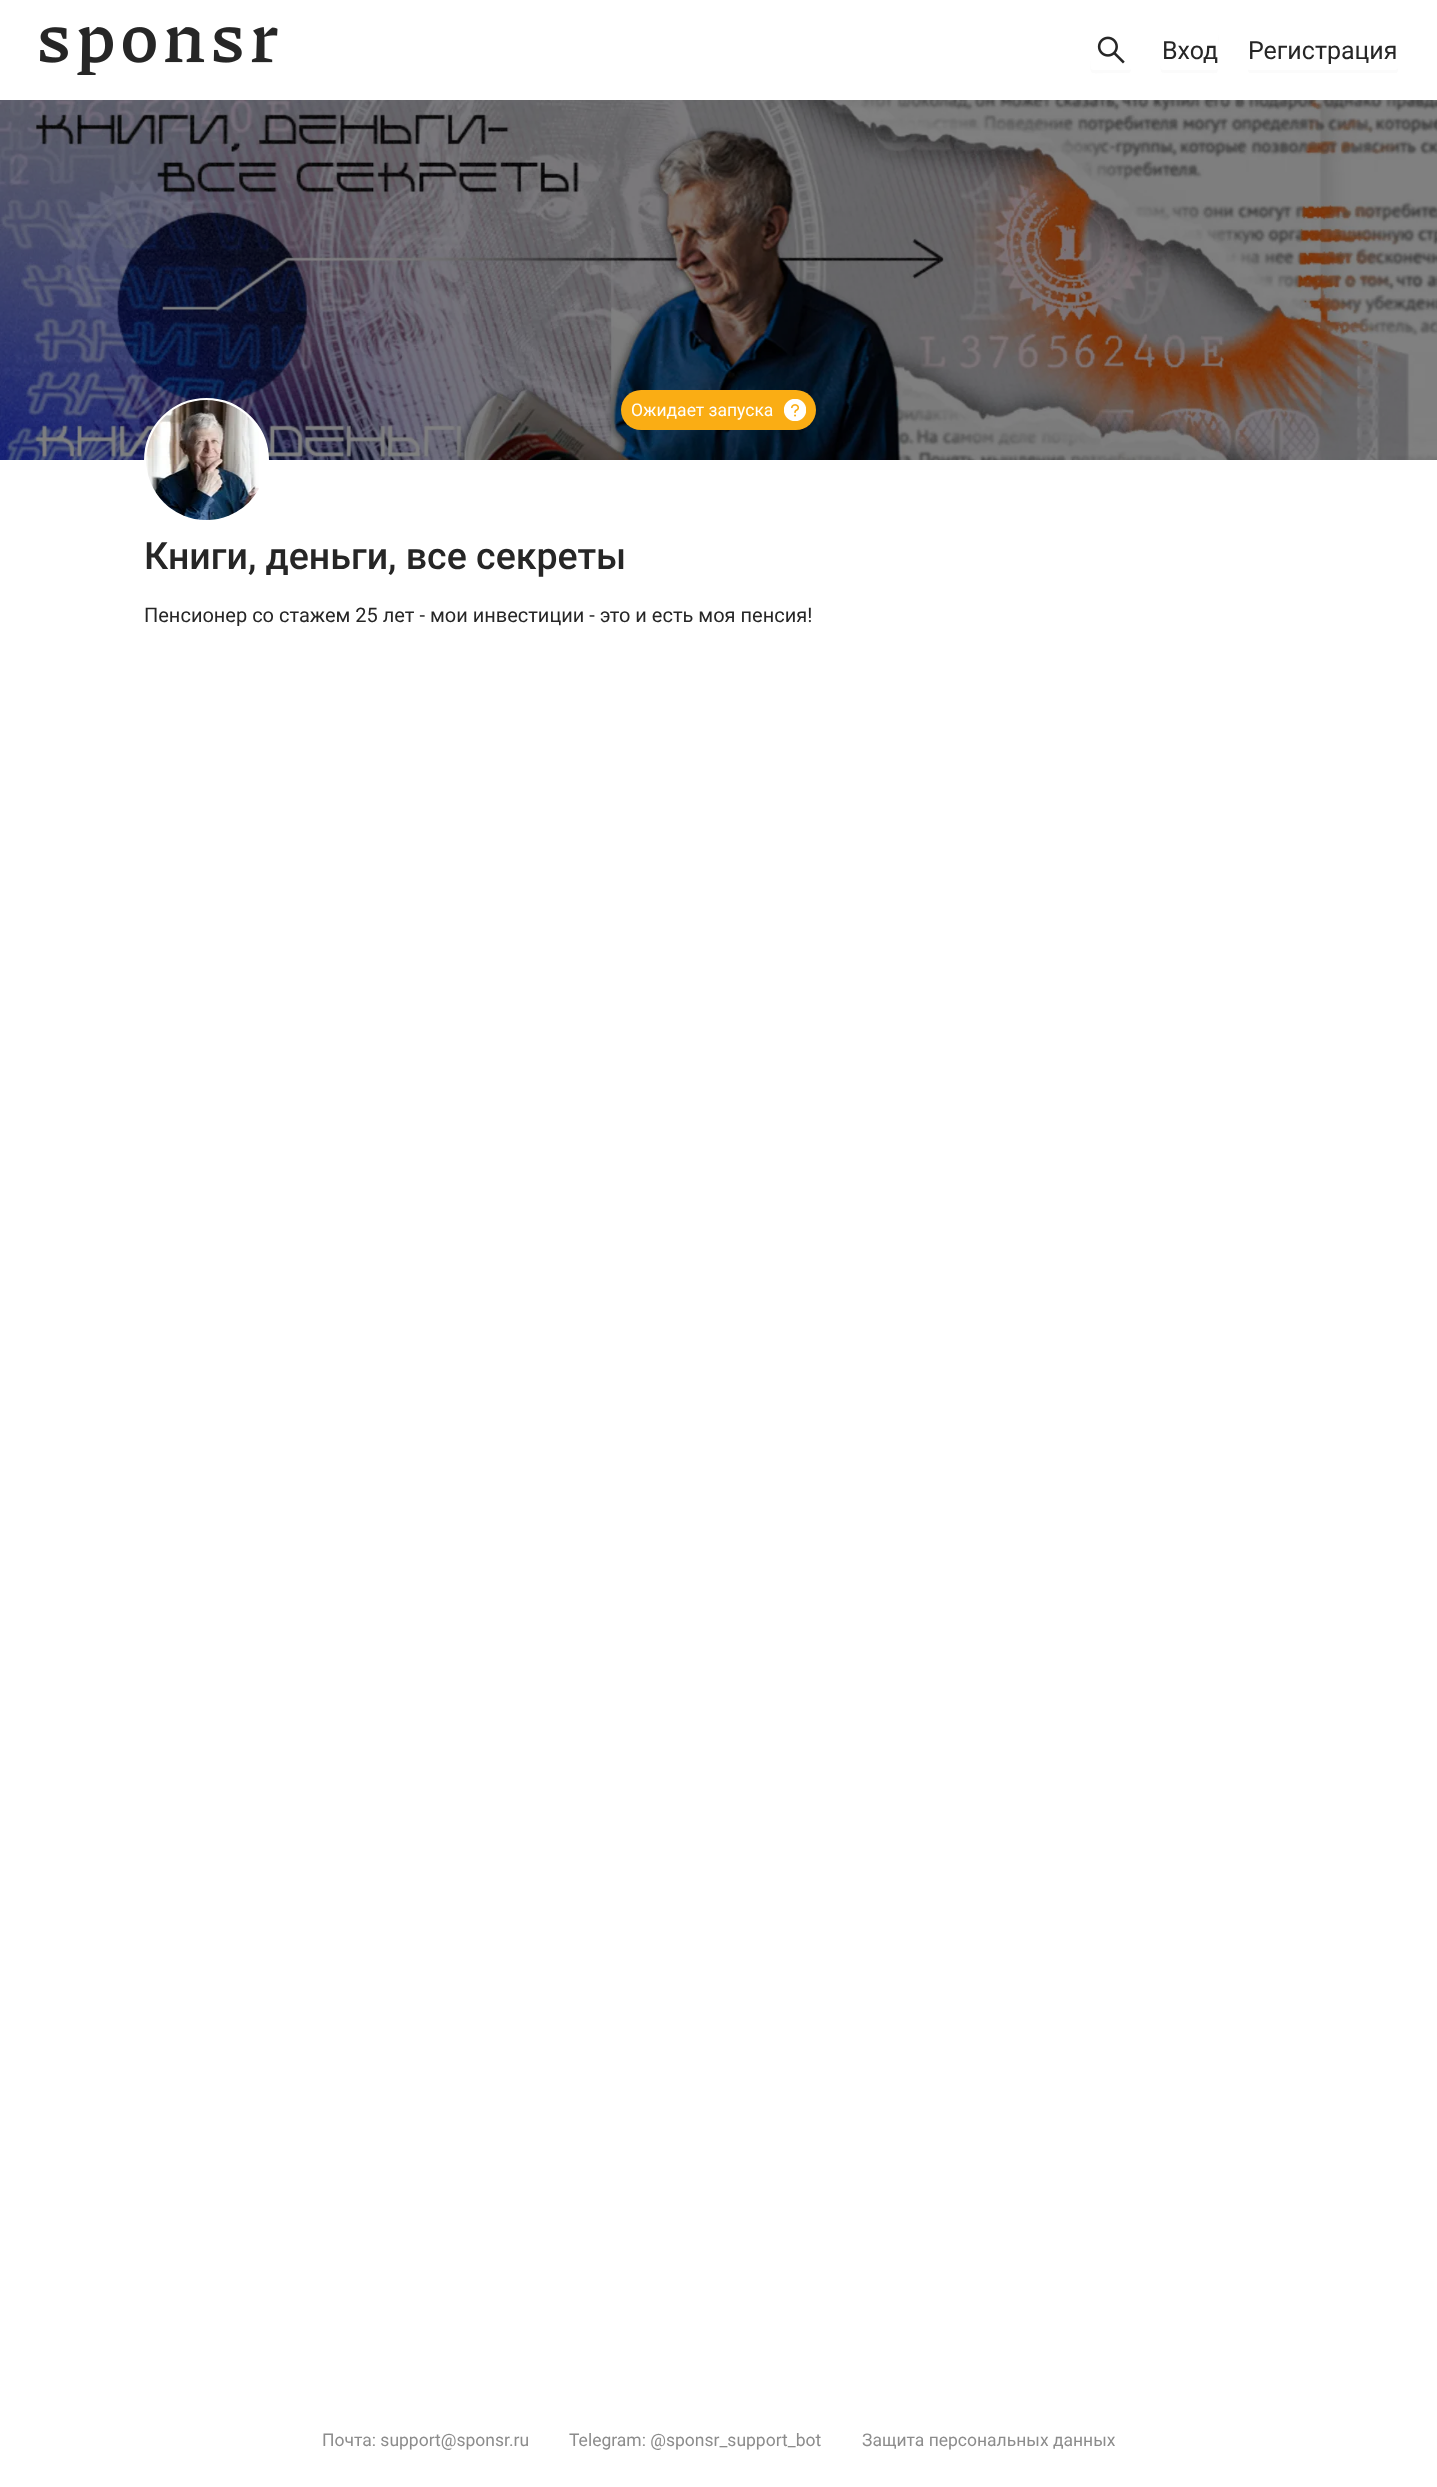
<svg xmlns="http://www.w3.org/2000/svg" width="1437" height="2487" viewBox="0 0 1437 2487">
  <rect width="100%" height="100%" fill="#fff"/>
  <image x="40" y="27" width="238" height="48" href="img/1.png"/>
  <path d="M1091 34V53C1091 78 1086 73 1111 73H1123C1128 73 1131 74 1131 69C1131 69 1130 70 1129 70H1094C1092 70 1091 69 1091 68Z" fill="#fbfbfb"/>
  <image x="1097" y="36" width="28" height="28" href="img/2.png"/>
  <path d="M1161 34V59C1161 74 1158 73 1172 73H1207C1218 73 1218 75 1218 65V53C1218 50 1219 36 1218 34V68C1218 69 1216 70 1215 70H1164C1162 70 1161 69 1161 68Z" fill="#fbfbfb"/>
  <path d="M1248 69V70C1248 72 1249 73 1250 73H1396C1397 73 1398 72 1398 70V36V34V68C1398 69 1396 70 1395 70H1250C1249 70 1248 70 1248 69Z" fill="#fbfbfb"/>
  <image x="0" y="100" width="1437" height="360" href="img/3.png"/>
  <rect x="621" y="390" width="195" height="40" rx="20" fill="#faad14"/>
  <image x="784" y="399" width="22" height="22" href="img/4.png"/>
  <circle cx="206.5" cy="460.5" r="61" fill="#fff" stroke="#fff" stroke-width="3"/>
  <image x="146" y="400" width="113" height="120" href="img/5.png"/>
  <g font-family="Roboto" font-size="25" fill="#262626">
    <text x="1162" y="59">Вход</text>
    <text x="1248" y="59">Регистрация</text>
  </g>
  <text x="631" y="416" font-family="Roboto" font-size="17.5" fill="#fff">Ожидает запуска</text>
  <text x="144" y="569" font-family="Roboto" font-size="37.5" font-weight="500" fill="#262626">Книги, деньги, все секреты</text>
  <text x="144" y="622" font-family="Roboto" font-size="20" fill="#262626">Пенсионер со стажем 25 лет - мои инвестиции - это и есть моя пенсия!</text>
  <g font-family="Roboto" font-size="17.5" fill="#8c8c8c">
    <text x="322" y="2446">Почта: support@sponsr.ru</text>
    <text x="569" y="2446">Telegram: @sponsr_support_bot</text>
    <text x="862" y="2446">Защита персональных данных</text>
  </g>
</svg>
